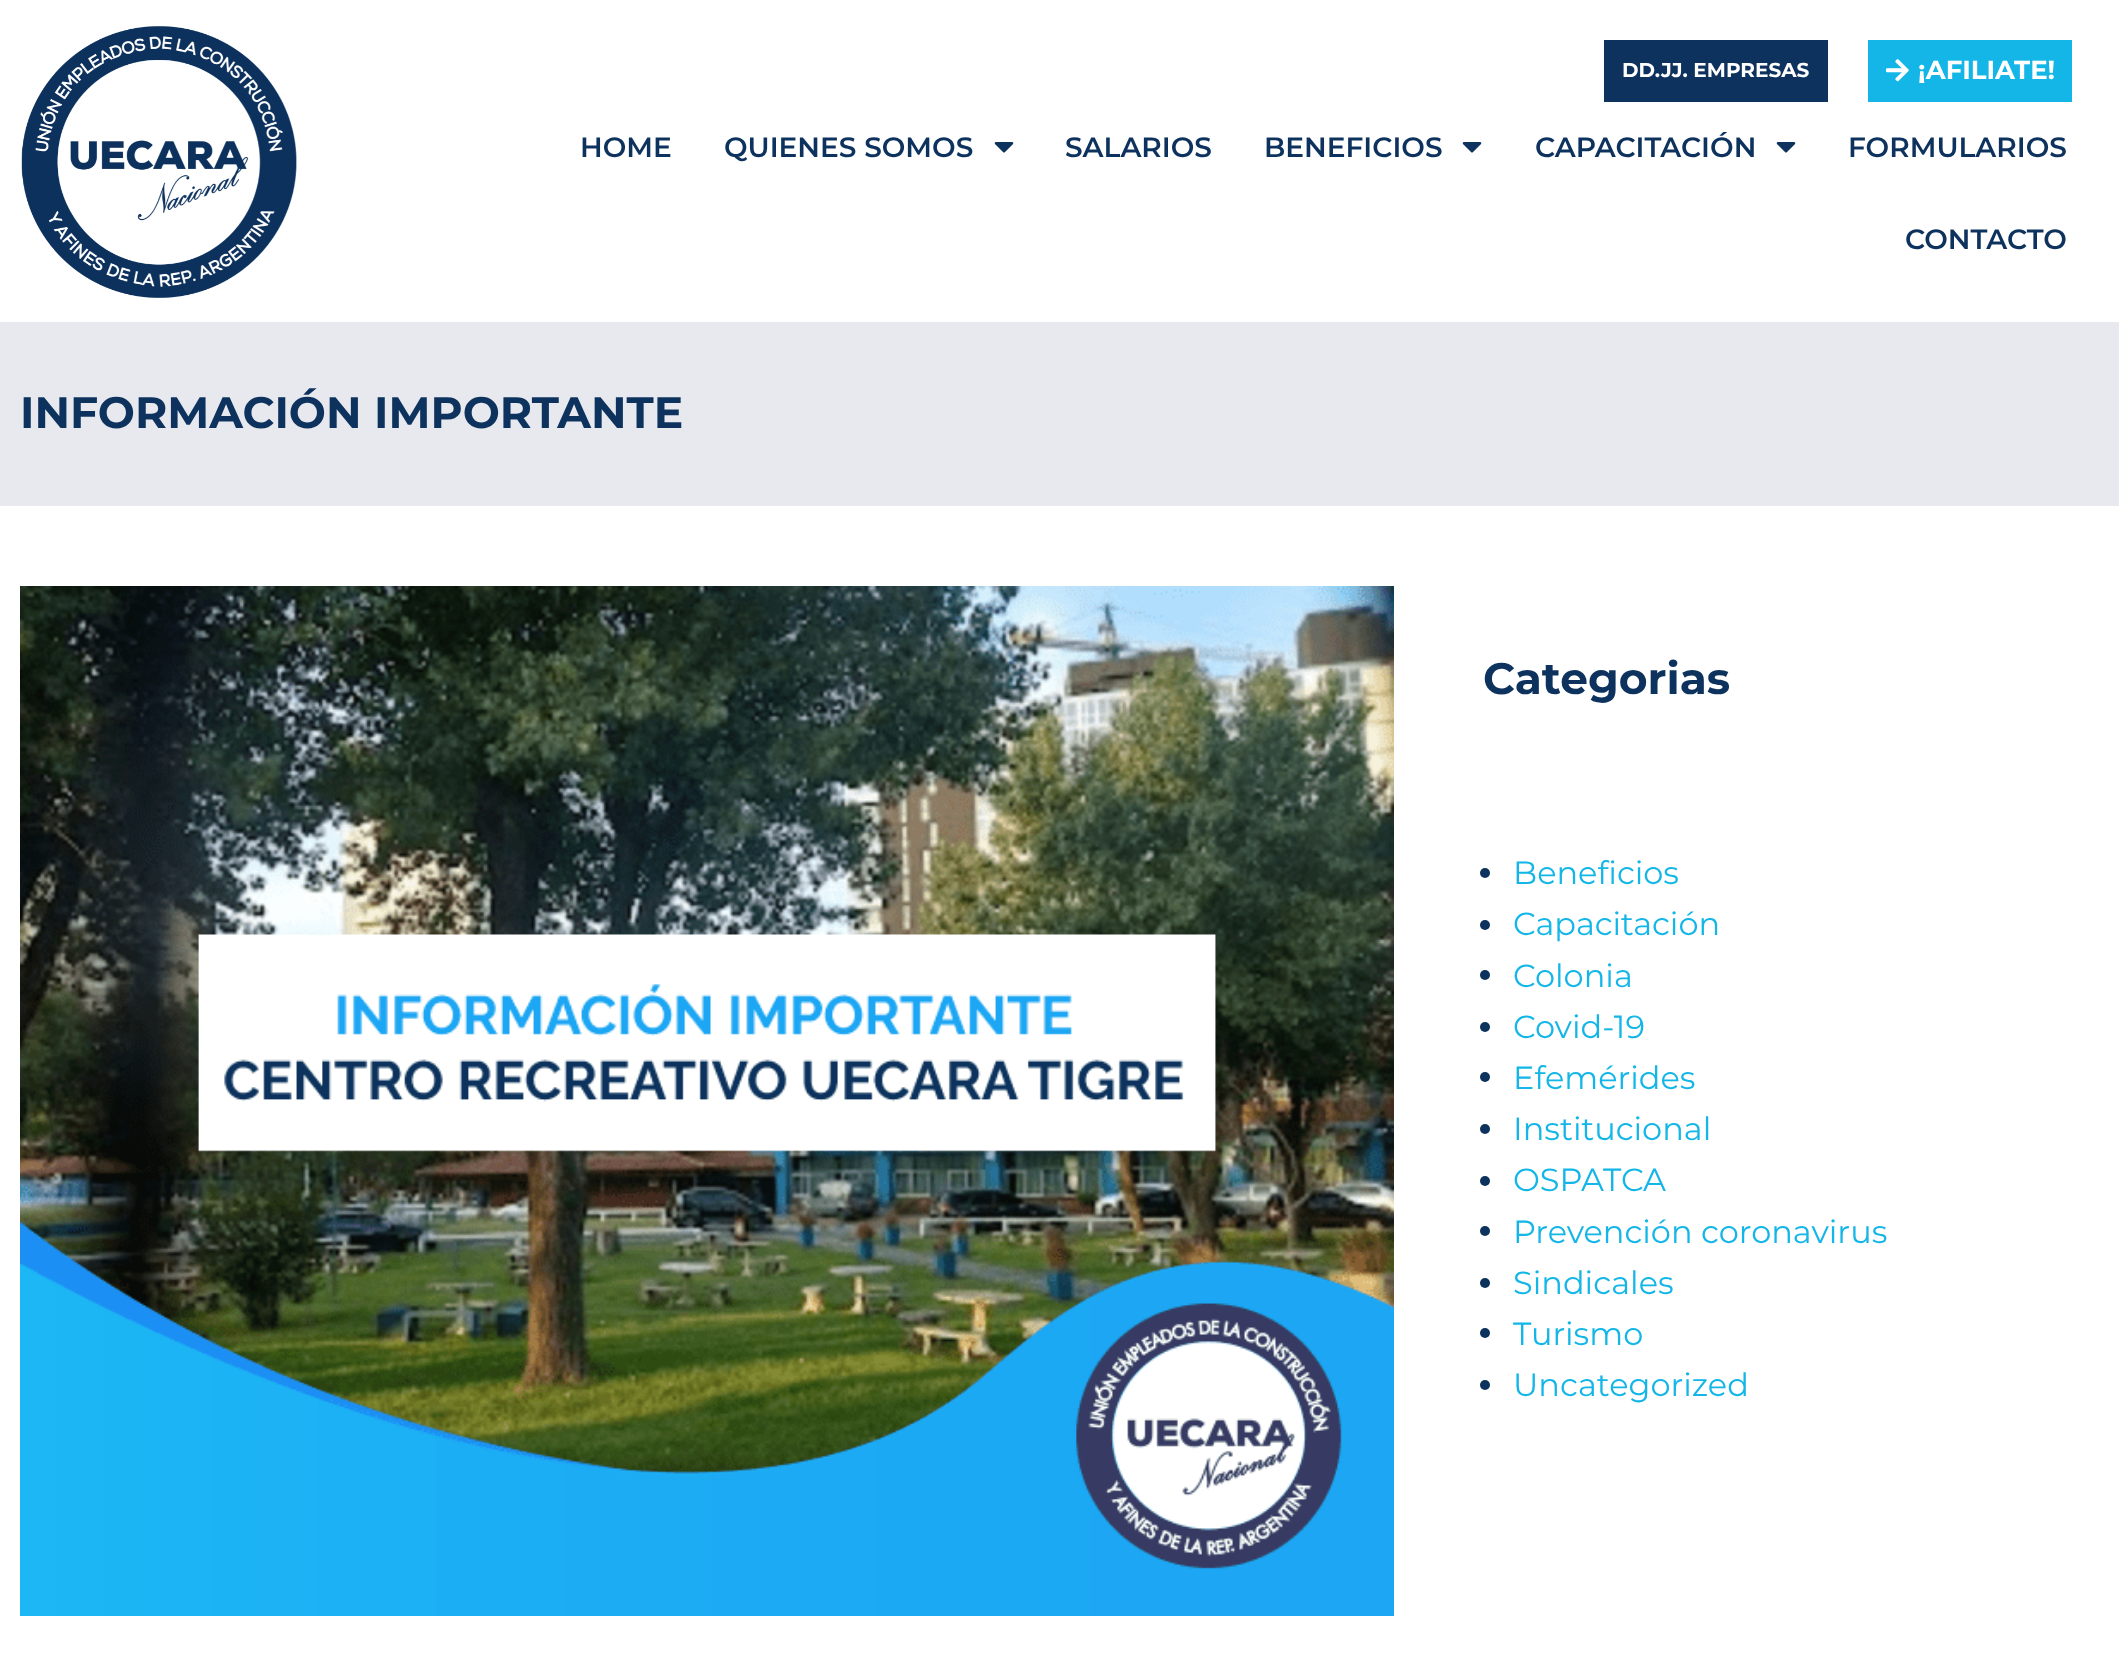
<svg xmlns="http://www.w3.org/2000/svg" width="2119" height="1667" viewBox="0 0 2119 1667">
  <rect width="100%" height="100%" fill="#fff"/>
  <image x="21" y="26" width="276" height="272" href="img/1.png"/>
  <path d="M1604 40h224v62H1604z" fill="#0c325d"/>
  <path d="M1868 40h204v62H1868z" fill="#13b6e7"/>
  <image x="1886" y="59" width="23" height="23" href="img/2.png"/>
  <image x="994" y="142" width="20" height="11" href="img/3.png"/>
  <image x="1462" y="142" width="20" height="11" href="img/3.png"/>
  <image x="1776" y="142" width="20" height="11" href="img/3.png"/>
  <path d="M0 322h2119v184H0z" fill="#e8e9ef"/>
  <image x="20" y="586" width="1374" height="1030" href="img/4.png"/>
  <circle cx="1485" cy="873" r="5" fill="#0c325d"/>
  <circle cx="1485" cy="925" r="5" fill="#0c325d"/>
  <circle cx="1485" cy="975" r="5" fill="#0c325d"/>
  <circle cx="1485" cy="1027" r="5" fill="#0c325d"/>
  <circle cx="1485" cy="1077" r="5" fill="#0c325d"/>
  <circle cx="1485" cy="1129" r="5" fill="#0c325d"/>
  <circle cx="1485" cy="1181" r="5" fill="#0c325d"/>
  <circle cx="1485" cy="1231" r="5" fill="#0c325d"/>
  <circle cx="1485" cy="1283" r="5" fill="#0c325d"/>
  <circle cx="1485" cy="1333" r="5" fill="#0c325d"/>
  <circle cx="1485" cy="1385" r="5" fill="#0c325d"/>
  <text x="1622" y="77" font-family="Montserrat" font-size="20" font-weight="bold" fill="#fff">DD.JJ. EMPRESAS</text>
  <text x="1918" y="79" font-family="Montserrat" font-size="26" font-weight="bold" fill="#fff">¡AFILIATE!</text>
  <g font-family="Montserrat" font-size="28" font-weight="600" fill="#0c325d">
    <text x="580" y="157">HOME</text>
    <text x="724" y="157">QUIENES SOMOS</text>
    <text x="1065" y="157">SALARIOS</text>
    <text x="1264" y="157">BENEFICIOS</text>
    <text x="1535" y="157">CAPACITACIÓN</text>
    <text x="1848" y="157">FORMULARIOS</text>
    <text x="1905" y="249">CONTACTO</text>
  </g>
  <g font-family="Montserrat" font-size="44" font-weight="bold" fill="#0c325d">
    <text x="20" y="428">INFORMACIÓN IMPORTANTE</text>
    <text x="1483" y="694">Categorias</text>
  </g>
  <g font-family="Montserrat" font-size="32" fill="#13b6e7">
    <text x="1513" y="884">Beneficios</text>
    <text x="1513" y="935">Capacitación</text>
    <text x="1513" y="987">Colonia</text>
    <text x="1513" y="1038">Covid-19</text>
    <text x="1513" y="1089">Efemérides</text>
    <text x="1513" y="1140">Institucional</text>
    <text x="1513" y="1191">OSPATCA</text>
    <text x="1513" y="1243">Prevención coronavirus</text>
    <text x="1513" y="1294">Sindicales</text>
    <text x="1513" y="1345">Turismo</text>
    <text x="1513" y="1396">Uncategorized</text>
  </g>
</svg>
